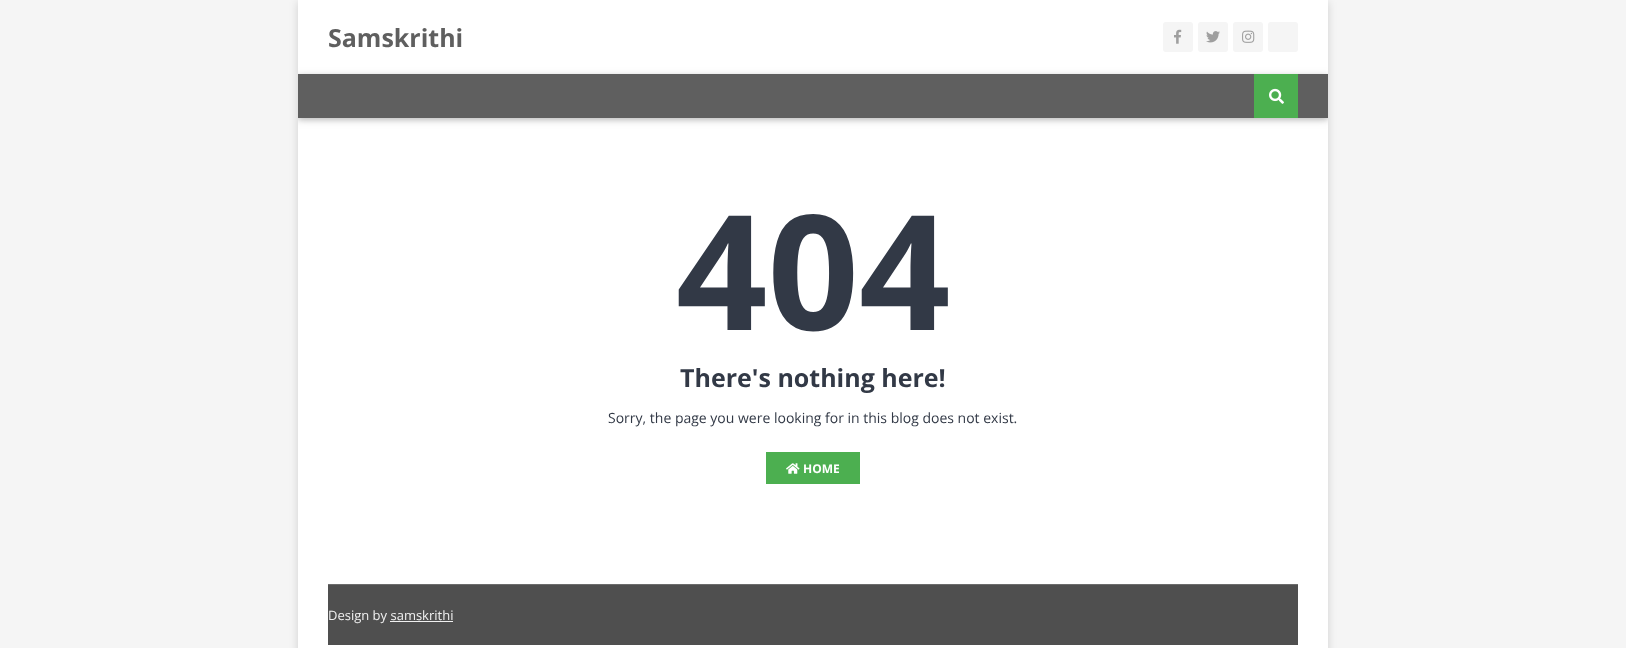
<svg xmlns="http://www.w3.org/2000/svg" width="1626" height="648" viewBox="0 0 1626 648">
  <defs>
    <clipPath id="clip1"><path d="M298 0h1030v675H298z"/></clipPath>
  </defs>
  <rect width="100%" height="100%" fill="#f5f5f5"/>
  <path d="M298 2h1030v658H298z" fill="#00000026" filter="blur(4px)"/>
  <path d="M298 0h1030v648H298z" fill="#fff"/>
  <rect x="1163" y="22" width="30" height="30" rx="3" fill="#f5f5f5"/>
  <image x="1174" y="29" width="8" height="15" href="img/1.png"/>
  <rect x="1198" y="22" width="30" height="30" rx="3" fill="#f5f5f5"/>
  <image x="1206" y="31" width="14" height="12" href="img/2.png"/>
  <rect x="1233" y="22" width="30" height="30" rx="3" fill="#f5f5f5"/>
  <image x="1242" y="30" width="13" height="13" href="img/3.png"/>
  <rect x="1268" y="22" width="30" height="30" rx="3" fill="#f5f5f5"/>
  <g clip-path="url(#clip1)">
    <path d="M298 76h1030v44H298z" fill="#0000001f" filter="blur(5px)"/>
    <path d="M298 76h1030v44H298z" fill="#00000029" filter="blur(2.5px)"/>
  </g>
  <path d="M298 74h1030v44H298z" fill="#5f5f5f"/>
  <path d="M1254 74h44v44H1254z" fill="#4caf50"/>
  <image x="1269" y="88" width="15" height="16" href="img/4.png"/>
  <path d="M766 452h94v32H766z" fill="#4caf50"/>
  <image x="786" y="463" width="14" height="11" href="img/5.png"/>
  <path d="M328 584h970v1H328z" fill="#6c6c6c"/>
  <path d="M328 585h970v60H328z" fill="#4f4f4f"/>
  <path d="M390 621h63v1H390z" fill="#f0f0f0"/>
  <text x="328" y="47" font-family="Open Sans" font-size="25" font-weight="bold" fill="#5f5f5f">Samskrithi</text>
  <text x="676" y="330" font-family="Open Sans" font-size="160" font-weight="bold" fill="#323946">404</text>
  <text x="680" y="387" font-family="Open Sans" font-size="25" font-weight="bold" fill="#323946">There's nothing here!</text>
  <text x="608" y="423" font-family="Open Sans" font-size="14" fill="#323946">Sorry, the page you were looking for in this blog does not exist.</text>
  <text x="803" y="473" font-family="Open Sans" font-size="12" font-weight="bold" fill="#fff">HOME</text>
  <text x="328" y="620" font-family="Open Sans" font-size="13" fill="#f0f0f0">Design by samskrithi</text>
</svg>
